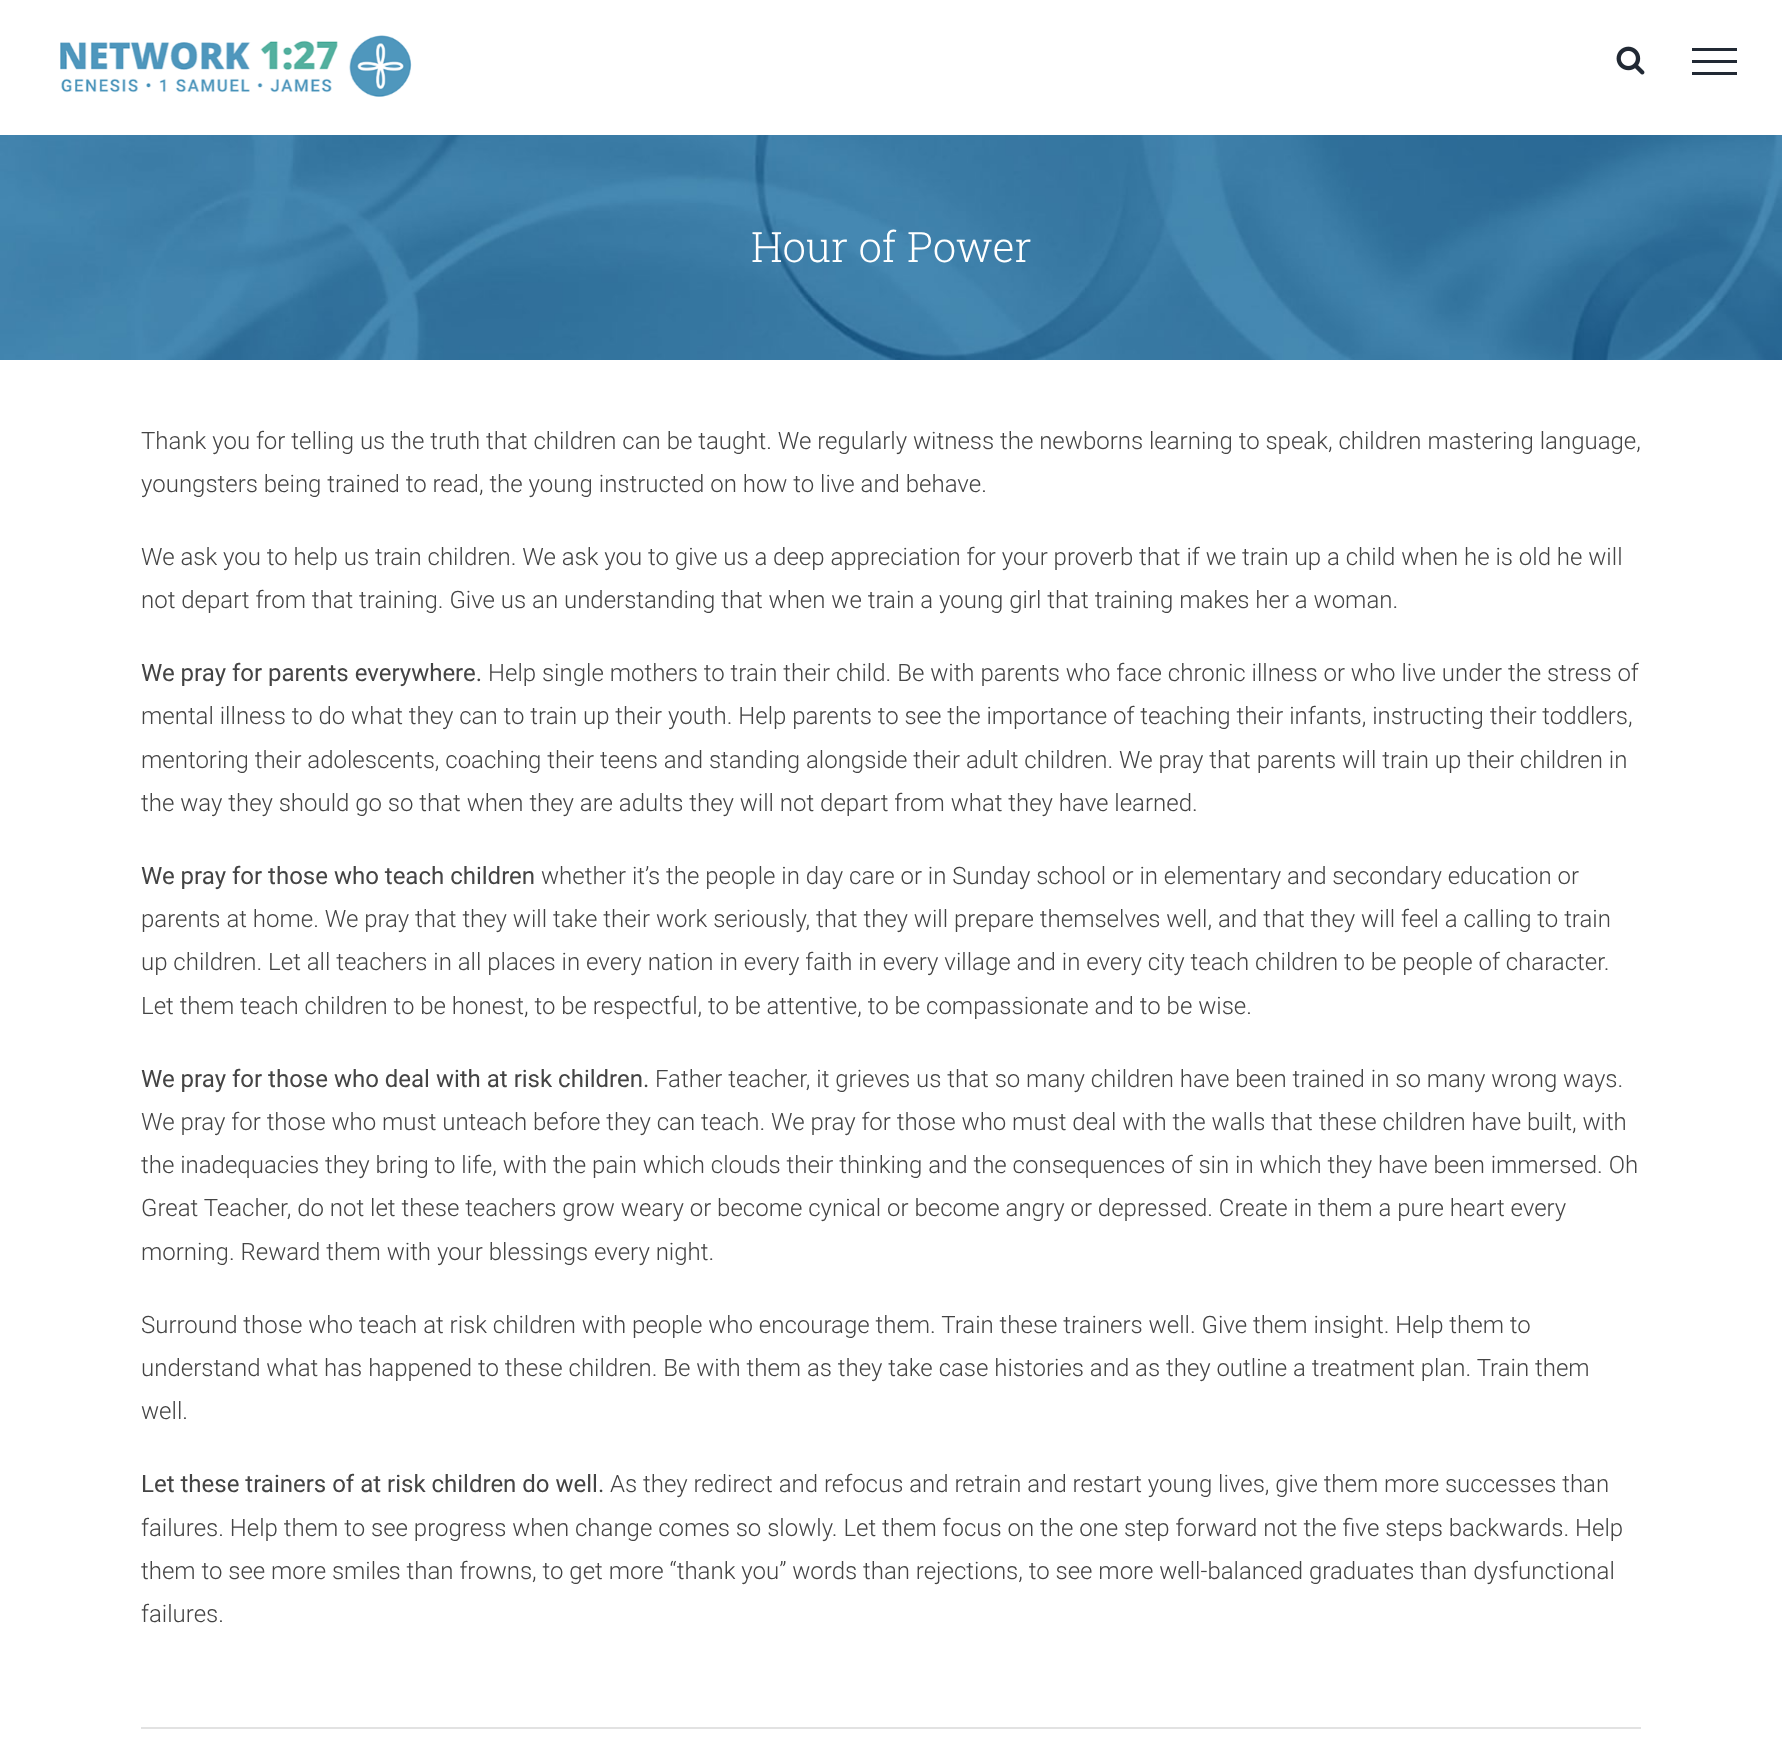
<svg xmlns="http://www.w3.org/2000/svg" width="1782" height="1753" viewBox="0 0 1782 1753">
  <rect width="100%" height="100%" fill="#fff"/>
  <image x="60" y="35" width="352" height="62" href="img/1.png"/>
  <image x="1616" y="46" width="29" height="29" href="img/2.png"/>
  <path d="M1692 48h45v3H1692z" fill="#212934"/>
  <path d="M1692 60h45v3H1692z" fill="#212934"/>
  <path d="M1692 72h45v3H1692z" fill="#212934"/>
  <image x="0" y="135" width="1782" height="225" href="img/3.png"/>
  <path d="M141 1727h1500v2H141z" fill="#e2e2e2"/>
  <text x="751" y="262" font-family="Roboto Slab" font-size="42" font-weight="300" fill="#fff">Hour of Power</text>
  <g font-family="Roboto" font-size="24" font-weight="300" fill="#444">
    <text x="141" y="449">Thank you for telling us the truth that children can be taught. We regularly witness the newborns learning to speak, children mastering language,</text>
    <text x="141" y="492">youngsters being trained to read, the young instructed on how to live and behave.</text>
    <text x="141" y="565">We ask you to help us train children. We ask you to give us a deep appreciation for your proverb that if we train up a child when he is old he will</text>
    <text x="141" y="608">not depart from that training. Give us an understanding that when we train a young girl that training makes her a woman.</text>
  </g>
  <text x="141" y="681" font-family="Roboto" font-size="24" fill="#444">We pray for parents everywhere.</text>
  <g font-family="Roboto" font-size="24" font-weight="300" fill="#444">
    <text x="488" y="681">Help single mothers to train their child. Be with parents who face chronic illness or who live under the stress of</text>
    <text x="141" y="724">mental illness to do what they can to train up their youth. Help parents to see the importance of teaching their infants, instructing their toddlers,</text>
    <text x="141" y="768">mentoring their adolescents, coaching their teens and standing alongside their adult children. We pray that parents will train up their children in</text>
    <text x="141" y="811">the way they should go so that when they are adults they will not depart from what they have learned.</text>
  </g>
  <text x="141" y="884" font-family="Roboto" font-size="24" fill="#444">We pray for those who teach children</text>
  <g font-family="Roboto" font-size="24" font-weight="300" fill="#444">
    <text x="541" y="884">whether it’s the people in day care or in Sunday school or in elementary and secondary education or</text>
    <text x="141" y="927">parents at home. We pray that they will take their work seriously, that they will prepare themselves well, and that they will feel a calling to train</text>
    <text x="141" y="970">up children. Let all teachers in all places in every nation in every faith in every village and in every city teach children to be people of character.</text>
    <text x="141" y="1014">Let them teach children to be honest, to be respectful, to be attentive, to be compassionate and to be wise.</text>
  </g>
  <text x="141" y="1087" font-family="Roboto" font-size="24" fill="#444">We pray for those who deal with at risk children.</text>
  <g font-family="Roboto" font-size="24" font-weight="300" fill="#444">
    <text x="655" y="1087">Father teacher, it grieves us that so many children have been trained in so many wrong ways.</text>
    <text x="141" y="1130">We pray for those who must unteach before they can teach. We pray for those who must deal with the walls that these children have built, with</text>
    <text x="141" y="1173">the inadequacies they bring to life, with the pain which clouds their thinking and the consequences of sin in which they have been immersed. Oh</text>
    <text x="141" y="1216">Great Teacher, do not let these teachers grow weary or become cynical or become angry or depressed. Create in them a pure heart every</text>
    <text x="141" y="1260">morning. Reward them with your blessings every night.</text>
    <text x="141" y="1333">Surround those who teach at risk children with people who encourage them. Train these trainers well. Give them insight. Help them to</text>
    <text x="141" y="1376">understand what has happened to these children. Be with them as they take case histories and as they outline a treatment plan. Train them</text>
    <text x="141" y="1419">well.</text>
  </g>
  <text x="141" y="1492" font-family="Roboto" font-size="24" fill="#444">Let these trainers of at risk children do well.</text>
  <g font-family="Roboto" font-size="24" font-weight="300" fill="#444">
    <text x="610" y="1492">As they redirect and refocus and retrain and restart young lives, give them more successes than</text>
    <text x="141" y="1536">failures. Help them to see progress when change comes so slowly. Let them focus on the one step forward not the five steps backwards. Help</text>
    <text x="141" y="1579">them to see more smiles than frowns, to get more “thank you” words than rejections, to see more well-balanced graduates than dysfunctional</text>
    <text x="141" y="1622">failures.</text>
  </g>
</svg>
